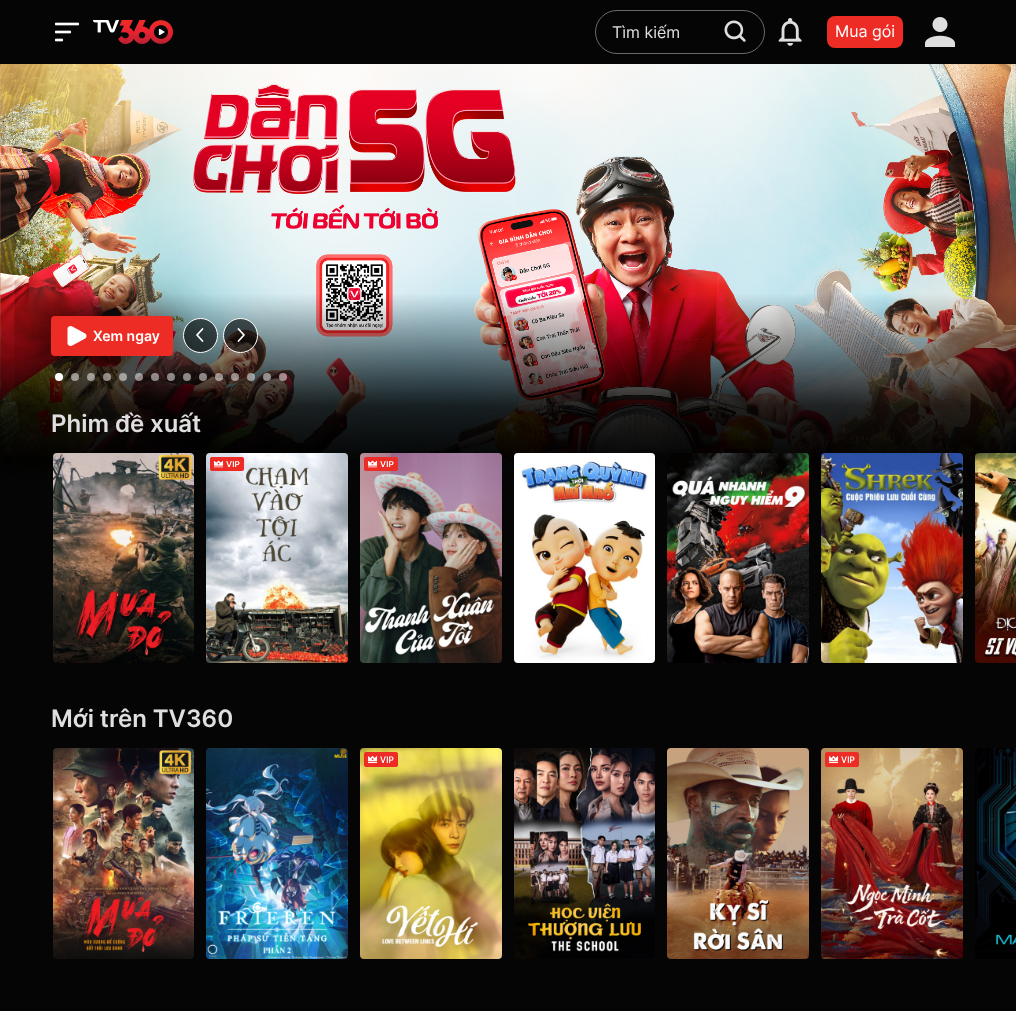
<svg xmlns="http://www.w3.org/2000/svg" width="1016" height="1011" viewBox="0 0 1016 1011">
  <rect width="100%" height="100%" fill="#050505"/>
  <image x="55" y="22" width="24" height="20" href="img/1.png"/>
  <image x="93" y="20" width="80" height="24" href="img/2.png"/>
  <rect x="595.5" y="10.5" width="169" height="43" rx="21.5" fill="none" stroke="#696969"/>
  <image x="724" y="20" width="22" height="22" href="img/3.png"/>
  <image x="778" y="18" width="24" height="28" href="img/4.png"/>
  <rect x="827" y="16" width="76" height="32" rx="8" fill="#ed2c25"/>
  <image x="925" y="17" width="30" height="30" href="img/5.png"/>
  <image x="0" y="64" width="1016" height="417" href="img/6.png"/>
  <rect x="51" y="317" width="122" height="40" rx="4" fill="#000" filter="blur(25px)"/>
  <rect x="51" y="316" width="122" height="40" rx="4" fill="#ed2c25"/>
  <image x="67" y="326" width="20" height="20" href="img/7.png"/>
  <circle cx="59" cy="377" r="4" fill="#fff"/>
  <circle cx="75" cy="377" r="4" fill="#ffffff80"/>
  <circle cx="91" cy="377" r="4" fill="#ffffff80"/>
  <circle cx="107" cy="377" r="4" fill="#ffffff80"/>
  <circle cx="123" cy="377" r="4" fill="#ffffff80"/>
  <circle cx="139" cy="377" r="4" fill="#ffffff80"/>
  <circle cx="155" cy="377" r="4" fill="#ffffff80"/>
  <circle cx="171" cy="377" r="4" fill="#ffffff80"/>
  <circle cx="187" cy="377" r="4" fill="#ffffff80"/>
  <circle cx="203" cy="377" r="4" fill="#ffffff80"/>
  <circle cx="219" cy="377" r="4" fill="#ffffff80"/>
  <circle cx="235" cy="377" r="4" fill="#ffffff80"/>
  <circle cx="251" cy="377" r="4" fill="#ffffff80"/>
  <circle cx="267" cy="377" r="4" fill="#ffffff80"/>
  <circle cx="283" cy="377" r="4" fill="#ffffff80"/>
  <circle cx="200.5" cy="335.5" r="17" fill="#00000099" stroke="#fff"/>
  <path d="M202.5 329L197 335L202.5 341" fill="none" stroke="#fff" stroke-width="1.8" stroke-linecap="round" stroke-linejoin="round"/>
  <circle cx="240.5" cy="335.5" r="17" fill="#00000099" stroke="#fff"/>
  <path d="M238.5 329L244 335L238.5 341" fill="none" stroke="#fff" stroke-width="1.8" stroke-linecap="round" stroke-linejoin="round"/>
  <image x="53" y="453" width="141" height="210" href="img/8.png"/>
  <image x="206" y="453" width="142" height="210" href="img/9.png"/>
  <image x="210" y="457" width="34" height="14" href="img/10.png"/>
  <image x="360" y="453" width="142" height="210" href="img/11.png"/>
  <image x="364" y="457" width="34" height="14" href="img/12.png"/>
  <image x="514" y="453" width="141" height="210" href="img/13.png"/>
  <image x="667" y="453" width="142" height="210" href="img/14.png"/>
  <image x="821" y="453" width="142" height="210" href="img/15.png"/>
  <image x="975" y="453" width="41" height="210" href="img/16.png"/>
  <image x="53" y="748" width="141" height="211" href="img/17.png"/>
  <image x="206" y="748" width="142" height="211" href="img/18.png"/>
  <image x="360" y="748" width="142" height="211" href="img/19.png"/>
  <image x="364" y="752" width="34" height="15" href="img/20.png"/>
  <image x="514" y="748" width="141" height="211" href="img/21.png"/>
  <image x="667" y="748" width="142" height="211" href="img/22.png"/>
  <image x="821" y="748" width="142" height="211" href="img/23.png"/>
  <image x="825" y="752" width="34" height="15" href="img/24.png"/>
  <image x="975" y="748" width="41" height="211" href="img/25.png"/>
  <text x="612" y="38" font-family="Inter" font-size="16" fill="#e0dfdf">Tìm kiếm</text>
  <text x="835" y="37" font-family="Inter" font-size="16" fill="#fff">Mua gói</text>
  <text x="93" y="341" font-family="Inter" font-size="14" font-weight="600" fill="#fff">Xem ngay</text>
  <g font-family="Inter" font-size="24" font-weight="600" fill="#e0dfdf">
    <text x="51" y="432">Phim đề xuất</text>
    <text x="51" y="727">Mới trên TV360</text>
  </g>
</svg>
